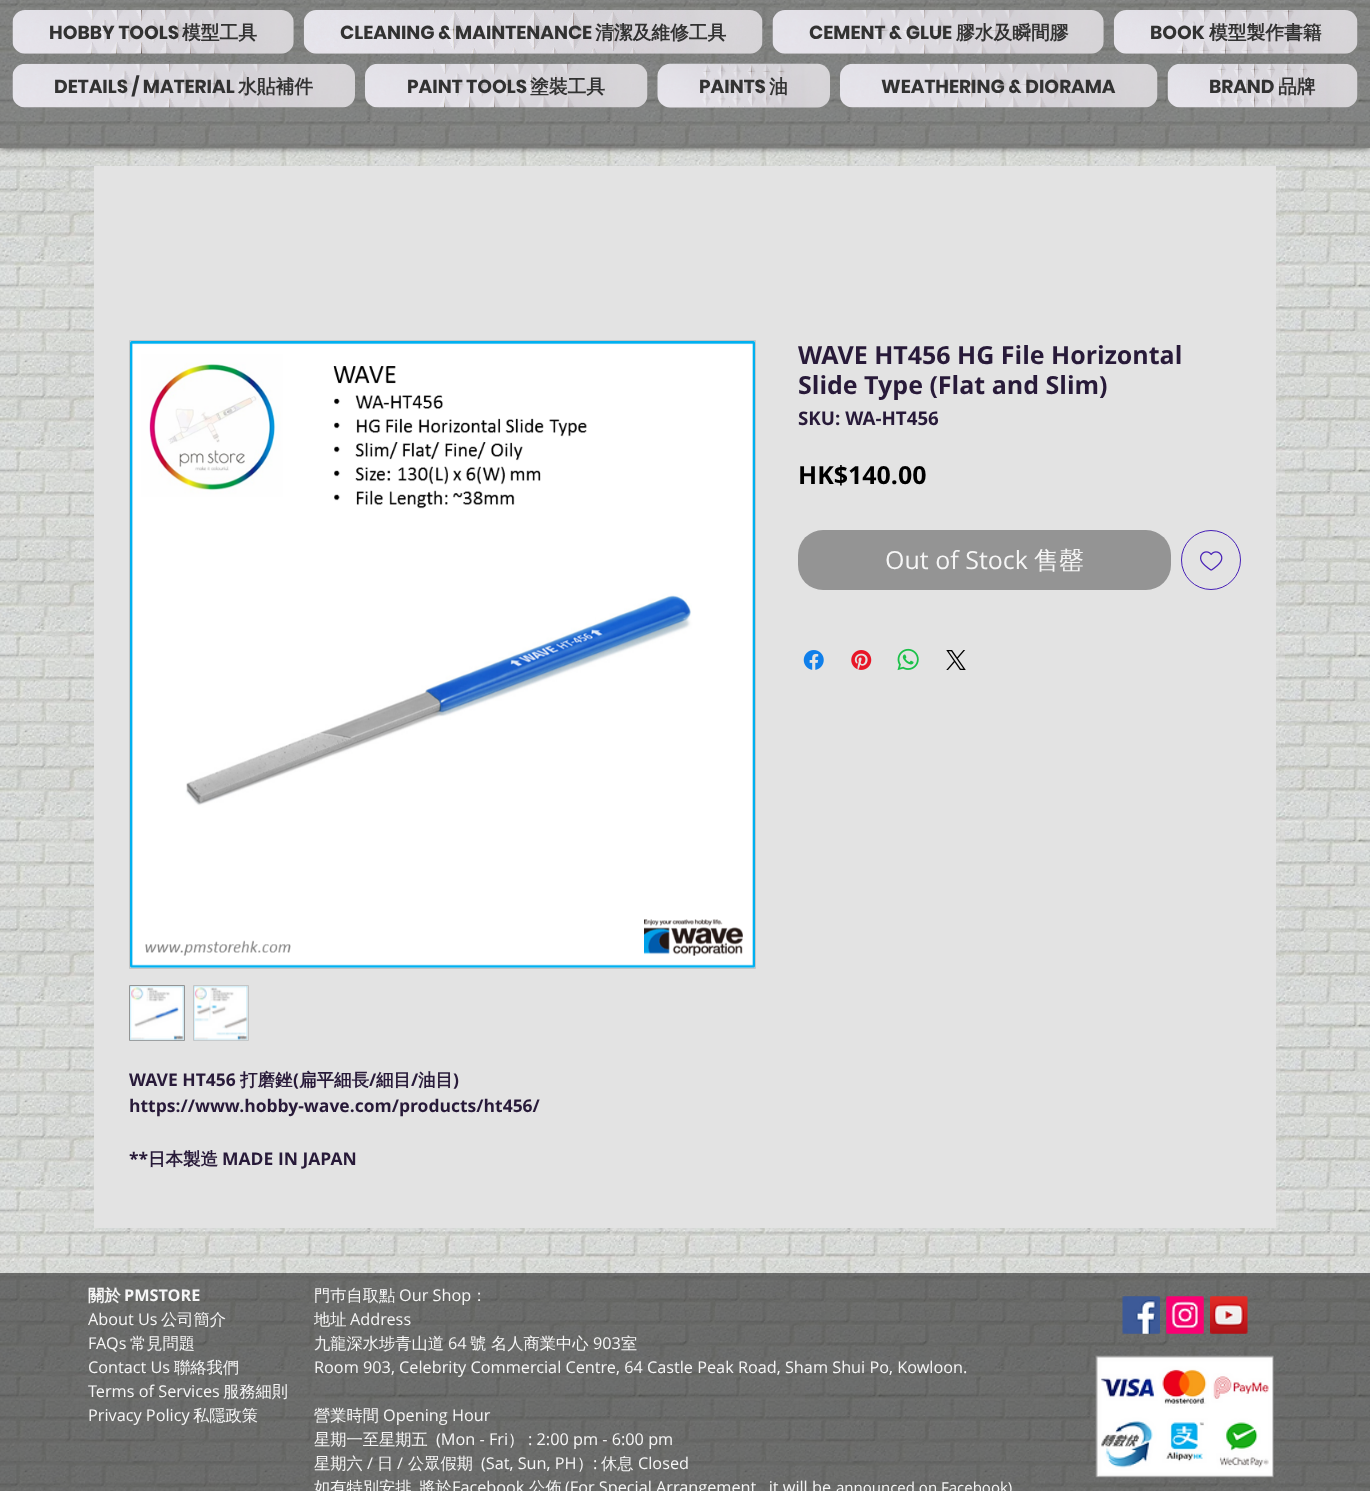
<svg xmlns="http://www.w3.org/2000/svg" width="1370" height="1491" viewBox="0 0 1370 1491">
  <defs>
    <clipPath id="clip1"><path d="M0 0H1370V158H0ZM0-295H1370V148H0Z" clip-rule="evenodd"/></clipPath>
  </defs>
  <rect width="100%" height="100%" fill="#fff"/>
  <image x="0" y="0" width="1370" height="1491" href="img/1.png"/>
  <g clip-path="url(#clip1)">
    <path d="M0 -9h1370v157H0z" fill="#000000b3" filter="blur(3px)"/>
  </g>
  <path d="M0 0h1370v148H0z" fill="#23232378"/>
  <image x="12" y="10" width="282" height="44" href="img/2.png"/>
  <image x="303" y="10" width="460" height="44" href="img/3.png"/>
  <image x="772" y="10" width="332" height="44" href="img/4.png"/>
  <image x="1113" y="10" width="245" height="44" href="img/5.png"/>
  <image x="12" y="63" width="343" height="45" href="img/6.png"/>
  <image x="365" y="63" width="283" height="45" href="img/7.png"/>
  <image x="657" y="63" width="173" height="45" href="img/8.png"/>
  <image x="840" y="63" width="318" height="45" href="img/9.png"/>
  <image x="1167" y="63" width="191" height="45" href="img/10.png"/>
  <path d="M94 166h1182v1062H94z" fill="#e3e3e3"/>
  <rect x="798" y="530" width="373" height="60" rx="25" fill="#949494"/>
  <circle cx="1211" cy="560" r="29.5" fill="none" stroke="#4720b7"/>
  <image x="1200" y="551" width="23" height="20" href="img/11.png"/>
  <image x="803" y="650" width="21" height="20" href="img/12.png"/>
  <image x="851" y="650" width="21" height="20" href="img/13.png"/>
  <image x="897" y="648" width="22" height="23" href="img/14.png"/>
  <image x="946" y="650" width="20" height="20" href="img/15.png"/>
  <path d="M129.5 340.5h626v628H129.5z" fill="none" stroke="#c5c5c5"/>
  <image x="130" y="341" width="625" height="627" href="img/16.png"/>
  <path d="M129.5 985.5h55v55H129.5z" fill="none" stroke="#949494"/>
  <image x="130" y="986" width="54" height="55" href="img/17.png"/>
  <path d="M193.5 985.5h55v55H193.5z" fill="none" stroke="#c5c5c5"/>
  <image x="194" y="986" width="54" height="55" href="img/18.png"/>
  <path d="M0 1273h1370v218H0z" fill="#23232399"/>
  <image x="1122" y="1296" width="38" height="38" href="img/19.png"/>
  <image x="1166" y="1296" width="38" height="38" href="img/20.png"/>
  <image x="1210" y="1296" width="38" height="38" href="img/21.png"/>
  <image x="1095" y="1355" width="179" height="123" href="img/22.png"/>
  <text x="49" y="39" font-family="Poppins" font-size="18.75" font-weight="bold" fill="#323232">HOBBY TOOLS</text>
  <text x="182" y="39" font-family="WenQuanYi Zen Hei" font-size="18.75" font-weight="bold" fill="#323232">模型工具</text>
  <text x="340" y="39" font-family="Poppins" font-size="18.75" font-weight="bold" fill="#323232">CLEANING &amp; MAINTENANCE</text>
  <text x="595" y="39" font-family="WenQuanYi Zen Hei" font-size="18.75" font-weight="bold" fill="#323232">清潔及維修工具</text>
  <text x="809" y="39" font-family="Poppins" font-size="18.75" font-weight="bold" fill="#323232">CEMENT &amp; GLUE</text>
  <text x="956" y="39" font-family="WenQuanYi Zen Hei" font-size="18.75" font-weight="bold" fill="#323232">膠水及瞬間膠</text>
  <text x="1150" y="39" font-family="Poppins" font-size="18.75" font-weight="bold" fill="#323232">BOOK</text>
  <text x="1209" y="39" font-family="WenQuanYi Zen Hei" font-size="18.75" font-weight="bold" fill="#323232">模型製作書籍</text>
  <text x="54" y="93" font-family="Poppins" font-size="18.75" font-weight="bold" fill="#323232">DETAILS / MATERIAL</text>
  <text x="238" y="93" font-family="WenQuanYi Zen Hei" font-size="18.75" font-weight="bold" fill="#323232">水貼補件</text>
  <text x="407" y="93" font-family="Poppins" font-size="18.75" font-weight="bold" fill="#323232">PAINT TOOLS</text>
  <text x="530" y="93" font-family="WenQuanYi Zen Hei" font-size="18.75" font-weight="bold" fill="#323232">塗裝工具</text>
  <text x="699" y="93" font-family="Poppins" font-size="18.75" font-weight="bold" fill="#323232">PAINTS</text>
  <text x="769" y="93" font-family="WenQuanYi Zen Hei" font-size="18.75" font-weight="bold" fill="#323232">油</text>
  <g font-family="Poppins" font-size="18.75" font-weight="bold" fill="#323232">
    <text x="881" y="93">WEATHERING &amp; DIORAMA</text>
    <text x="1209" y="93">BRAND</text>
  </g>
  <text x="1278" y="93" font-family="WenQuanYi Zen Hei" font-size="18.75" font-weight="bold" fill="#323232">品牌</text>
  <g font-family="Open Sans" font-size="25" font-weight="bold" fill="#281a39">
    <text x="798" y="364">WAVE HT456 HG File Horizontal</text>
    <text x="798" y="394">Slide Type (Flat and Slim)</text>
  </g>
  <text x="798" y="425" font-family="Open Sans" font-size="18.75" font-weight="bold" fill="#281a39">SKU: WA-HT456</text>
  <text x="798" y="484" font-family="Open Sans" font-size="25" font-weight="bold" fill="#000">HK$140.00</text>
  <text x="885" y="569" font-family="Open Sans" font-size="25" fill="#f6f6f6">Out of Stock</text>
  <text x="1034" y="569" font-family="WenQuanYi Zen Hei" font-size="25" font-weight="500" fill="#f6f6f6">售罄</text>
  <text x="129" y="1086" font-family="Open Sans" font-size="17.5" font-weight="bold" fill="#281a39">WAVE HT456</text>
  <text x="240" y="1086" font-family="WenQuanYi Zen Hei" font-size="17.5" font-weight="bold" fill="#281a39">打磨銼</text>
  <text x="293" y="1086" font-family="Open Sans" font-size="17.5" font-weight="bold" fill="#281a39">(</text>
  <text x="299" y="1086" font-family="WenQuanYi Zen Hei" font-size="17.5" font-weight="bold" fill="#281a39">扁平細長</text>
  <text x="369" y="1086" font-family="Open Sans" font-size="17.5" font-weight="bold" fill="#281a39">/</text>
  <text x="376" y="1086" font-family="WenQuanYi Zen Hei" font-size="17.5" font-weight="bold" fill="#281a39">細目</text>
  <text x="411" y="1086" font-family="Open Sans" font-size="17.5" font-weight="bold" fill="#281a39">/</text>
  <text x="418" y="1086" font-family="WenQuanYi Zen Hei" font-size="17.5" font-weight="bold" fill="#281a39">油目</text>
  <g font-family="Open Sans" font-size="17.5" font-weight="bold" fill="#281a39">
    <text x="453" y="1086">)</text>
    <text x="129" y="1112">https://www.hobby-wave.com/products/ht456/</text>
    <text x="129" y="1165">**</text>
  </g>
  <text x="148" y="1165" font-family="WenQuanYi Zen Hei" font-size="17.5" font-weight="bold" fill="#281a39">日本製造</text>
  <text x="222" y="1165" font-family="Open Sans" font-size="17.5" font-weight="bold" fill="#281a39">MADE IN JAPAN</text>
  <text x="88" y="1301" font-family="WenQuanYi Zen Hei" font-size="16.25" font-weight="bold" fill="#f6f6f6">關於</text>
  <text x="124" y="1301" font-family="Open Sans" font-size="16.25" font-weight="bold" fill="#f6f6f6">PMSTORE</text>
  <text x="88" y="1325" font-family="Open Sans" font-size="16.25" fill="#f6f6f6">About Us</text>
  <text x="161" y="1325" font-family="WenQuanYi Zen Hei" font-size="16.25" font-weight="500" fill="#f6f6f6">公司簡介</text>
  <text x="88" y="1349" font-family="Open Sans" font-size="16.25" fill="#f6f6f6">FAQs</text>
  <text x="130" y="1349" font-family="WenQuanYi Zen Hei" font-size="16.25" font-weight="500" fill="#f6f6f6">常見問題</text>
  <text x="88" y="1373" font-family="Open Sans" font-size="16.25" fill="#f6f6f6">Contact Us</text>
  <text x="174" y="1373" font-family="WenQuanYi Zen Hei" font-size="16.25" font-weight="500" fill="#f6f6f6">聯絡我們</text>
  <text x="88" y="1397" font-family="Open Sans" font-size="16.25" fill="#f6f6f6">Terms of Services</text>
  <text x="223" y="1397" font-family="WenQuanYi Zen Hei" font-size="16.25" font-weight="500" fill="#f6f6f6">服務細則</text>
  <text x="88" y="1421" font-family="Open Sans" font-size="16.25" fill="#f6f6f6">Privacy Policy</text>
  <g font-family="WenQuanYi Zen Hei" font-size="16.25" font-weight="500" fill="#f6f6f6">
    <text x="193" y="1421">私隱政策</text>
    <text x="314" y="1301">門巿自取點</text>
  </g>
  <text x="399" y="1301" font-family="Open Sans" font-size="16.25" fill="#f6f6f6">Our Shop</text>
  <g font-family="WenQuanYi Zen Hei" font-size="16.25" font-weight="500" fill="#f6f6f6">
    <text x="471" y="1301">：</text>
    <text x="314" y="1325">地址</text>
  </g>
  <text x="350" y="1325" font-family="Open Sans" font-size="16.25" fill="#f6f6f6">Address</text>
  <text x="314" y="1349" font-family="WenQuanYi Zen Hei" font-size="16.25" font-weight="500" fill="#f6f6f6">九龍深水埗青山道</text>
  <text x="448" y="1349" font-family="Open Sans" font-size="16.25" fill="#f6f6f6">64</text>
  <text x="470" y="1349" font-family="WenQuanYi Zen Hei" font-size="16.25" font-weight="500" fill="#f6f6f6">號 名人商業中心</text>
  <text x="593" y="1349" font-family="Open Sans" font-size="16.25" fill="#f6f6f6">903</text>
  <text x="621" y="1349" font-family="WenQuanYi Zen Hei" font-size="16.25" font-weight="500" fill="#f6f6f6">室</text>
  <text x="314" y="1373" font-family="Open Sans" font-size="16.25" fill="#f6f6f6">Room 903, Celebrity Commercial Centre, 64 Castle Peak Road, Sham Shui Po, Kowloon.</text>
  <text x="314" y="1421" font-family="WenQuanYi Zen Hei" font-size="16.25" font-weight="500" fill="#f6f6f6">營業時間</text>
  <text x="383" y="1421" font-family="Open Sans" font-size="16.25" fill="#f6f6f6">Opening Hour</text>
  <text x="314" y="1445" font-family="WenQuanYi Zen Hei" font-size="16.25" font-weight="500" fill="#f6f6f6">星期一至星期五</text>
  <text x="436" y="1445" font-family="Open Sans" font-size="16.25" fill="#f6f6f6">(Mon - Fri</text>
  <text x="508" y="1445" font-family="WenQuanYi Zen Hei" font-size="16.25" font-weight="500" fill="#f6f6f6">）</text>
  <text x="528" y="1445" font-family="Open Sans" font-size="16.25" fill="#f6f6f6">: 2:00 pm - 6:00 pm</text>
  <text x="314" y="1469" font-family="WenQuanYi Zen Hei" font-size="16.25" font-weight="500" fill="#f6f6f6">星期六</text>
  <text x="367" y="1469" font-family="Open Sans" font-size="16.25" fill="#f6f6f6">/</text>
  <text x="377" y="1469" font-family="WenQuanYi Zen Hei" font-size="16.25" font-weight="500" fill="#f6f6f6">日</text>
  <text x="397" y="1469" font-family="Open Sans" font-size="16.25" fill="#f6f6f6">/</text>
  <text x="408" y="1469" font-family="WenQuanYi Zen Hei" font-size="16.25" font-weight="500" fill="#f6f6f6">公眾假期</text>
  <text x="481" y="1469" font-family="Open Sans" font-size="16.25" fill="#f6f6f6">(Sat, Sun, PH</text>
  <text x="577" y="1469" font-family="WenQuanYi Zen Hei" font-size="16.25" font-weight="500" fill="#f6f6f6">）</text>
  <text x="593" y="1469" font-family="Open Sans" font-size="16.25" fill="#f6f6f6">:</text>
  <text x="601" y="1469" font-family="WenQuanYi Zen Hei" font-size="16.25" font-weight="500" fill="#f6f6f6">休息</text>
  <text x="638" y="1469" font-family="Open Sans" font-size="16.25" fill="#f6f6f6">Closed</text>
  <g font-family="WenQuanYi Zen Hei" font-size="16.25" font-weight="500" fill="#f6f6f6">
    <text x="314" y="1493">如有特別安排</text>
    <text x="419" y="1493">將於</text>
  </g>
  <text x="452" y="1493" font-family="Open Sans" font-size="16.25" fill="#f6f6f6">Facebook</text>
  <text x="529" y="1493" font-family="WenQuanYi Zen Hei" font-size="16.25" font-weight="500" fill="#f6f6f6">公佈</text>
  <text x="565" y="1493" font-family="Open Sans" font-size="16.25" fill="#f6f6f6">(For Special Arrangement , it will be</text>
  <text x="836" y="1493" font-family="Open Sans" font-size="15" fill="#f6f6f6">announced on Facebook)</text>
</svg>
